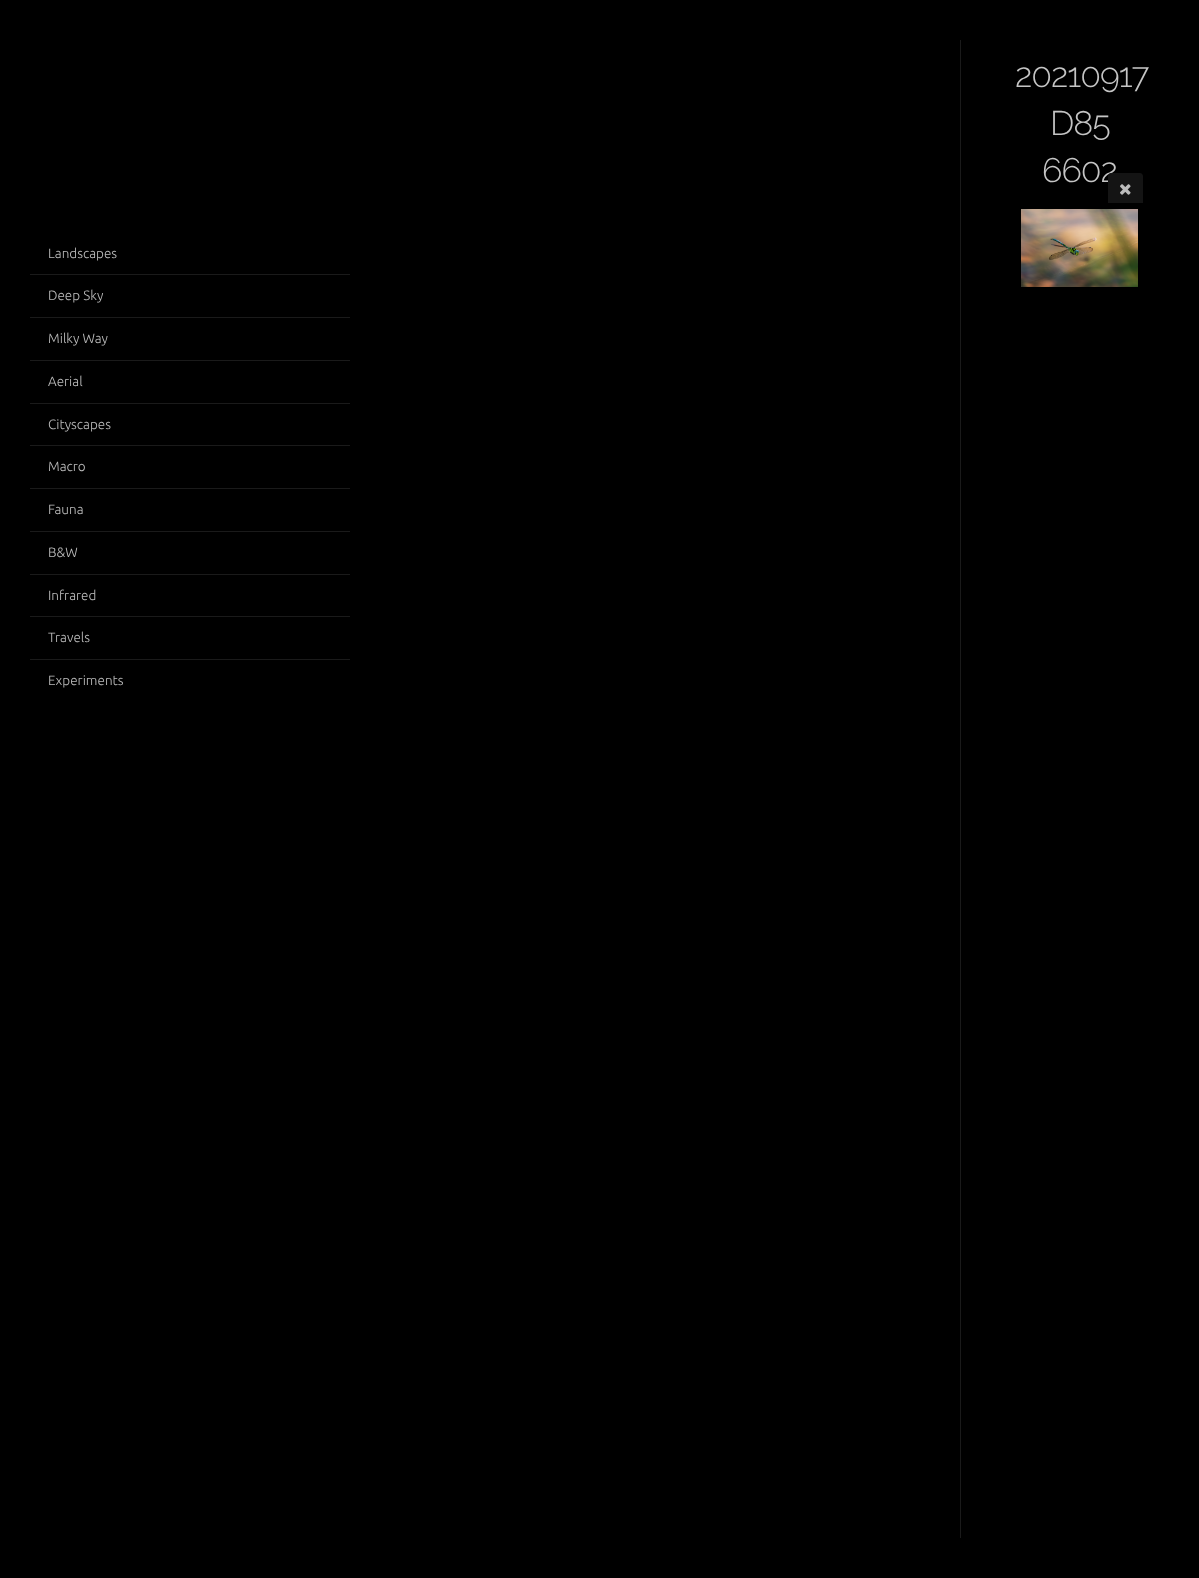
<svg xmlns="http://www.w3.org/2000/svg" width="1199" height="1578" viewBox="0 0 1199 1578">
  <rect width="100%" height="100%" fill="#000"/>
  <image x="1021" y="209" width="117" height="78" href="img/2.png"/>
  <path d="M30 274h320v1H30z" fill="#1a1a1a"/>
  <path d="M30 317h320v1H30z" fill="#1a1a1a"/>
  <path d="M30 360h320v1H30z" fill="#1a1a1a"/>
  <path d="M30 403h320v1H30z" fill="#1a1a1a"/>
  <path d="M30 445h320v1H30z" fill="#1a1a1a"/>
  <path d="M30 488h320v1H30z" fill="#1a1a1a"/>
  <path d="M30 531h320v1H30z" fill="#1a1a1a"/>
  <path d="M30 574h320v1H30z" fill="#1a1a1a"/>
  <path d="M30 616h320v1H30z" fill="#1a1a1a"/>
  <path d="M30 659h320v1H30z" fill="#1a1a1a"/>
  <path d="M960 40h1v1498H960z" fill="#1a1a1a"/>
  <g font-family="Raleway" font-size="34" font-weight="100" letter-spacing="-1" fill="#c5c5c5">
    <text x="1015" y="87">20210917</text>
    <text x="1050" y="135">D85</text>
    <text x="1042" y="182">6602</text>
  </g>
  <path d="M1111 173H1140C1141.5 173 1143 174.5 1143 176V203H1108V176C1108 174.5 1109.5 173 1111 173Z" fill="#141414"/>
  <image x="1120" y="184" width="11" height="11" href="img/1.png"/>
  <g font-family="Ubuntu" font-size="13.5" font-weight="300" fill="#bbb">
    <text x="48" y="258">Landscapes</text>
    <text x="48" y="300">Deep Sky</text>
    <text x="48" y="343">Milky Way</text>
    <text x="48" y="386">Aerial</text>
    <text x="48" y="429">Cityscapes</text>
    <text x="48" y="471">Macro</text>
    <text x="48" y="514">Fauna</text>
    <text x="48" y="557">B&amp;W</text>
    <text x="48" y="600">Infrared</text>
    <text x="48" y="642">Travels</text>
    <text x="48" y="685">Experiments</text>
  </g>
</svg>
